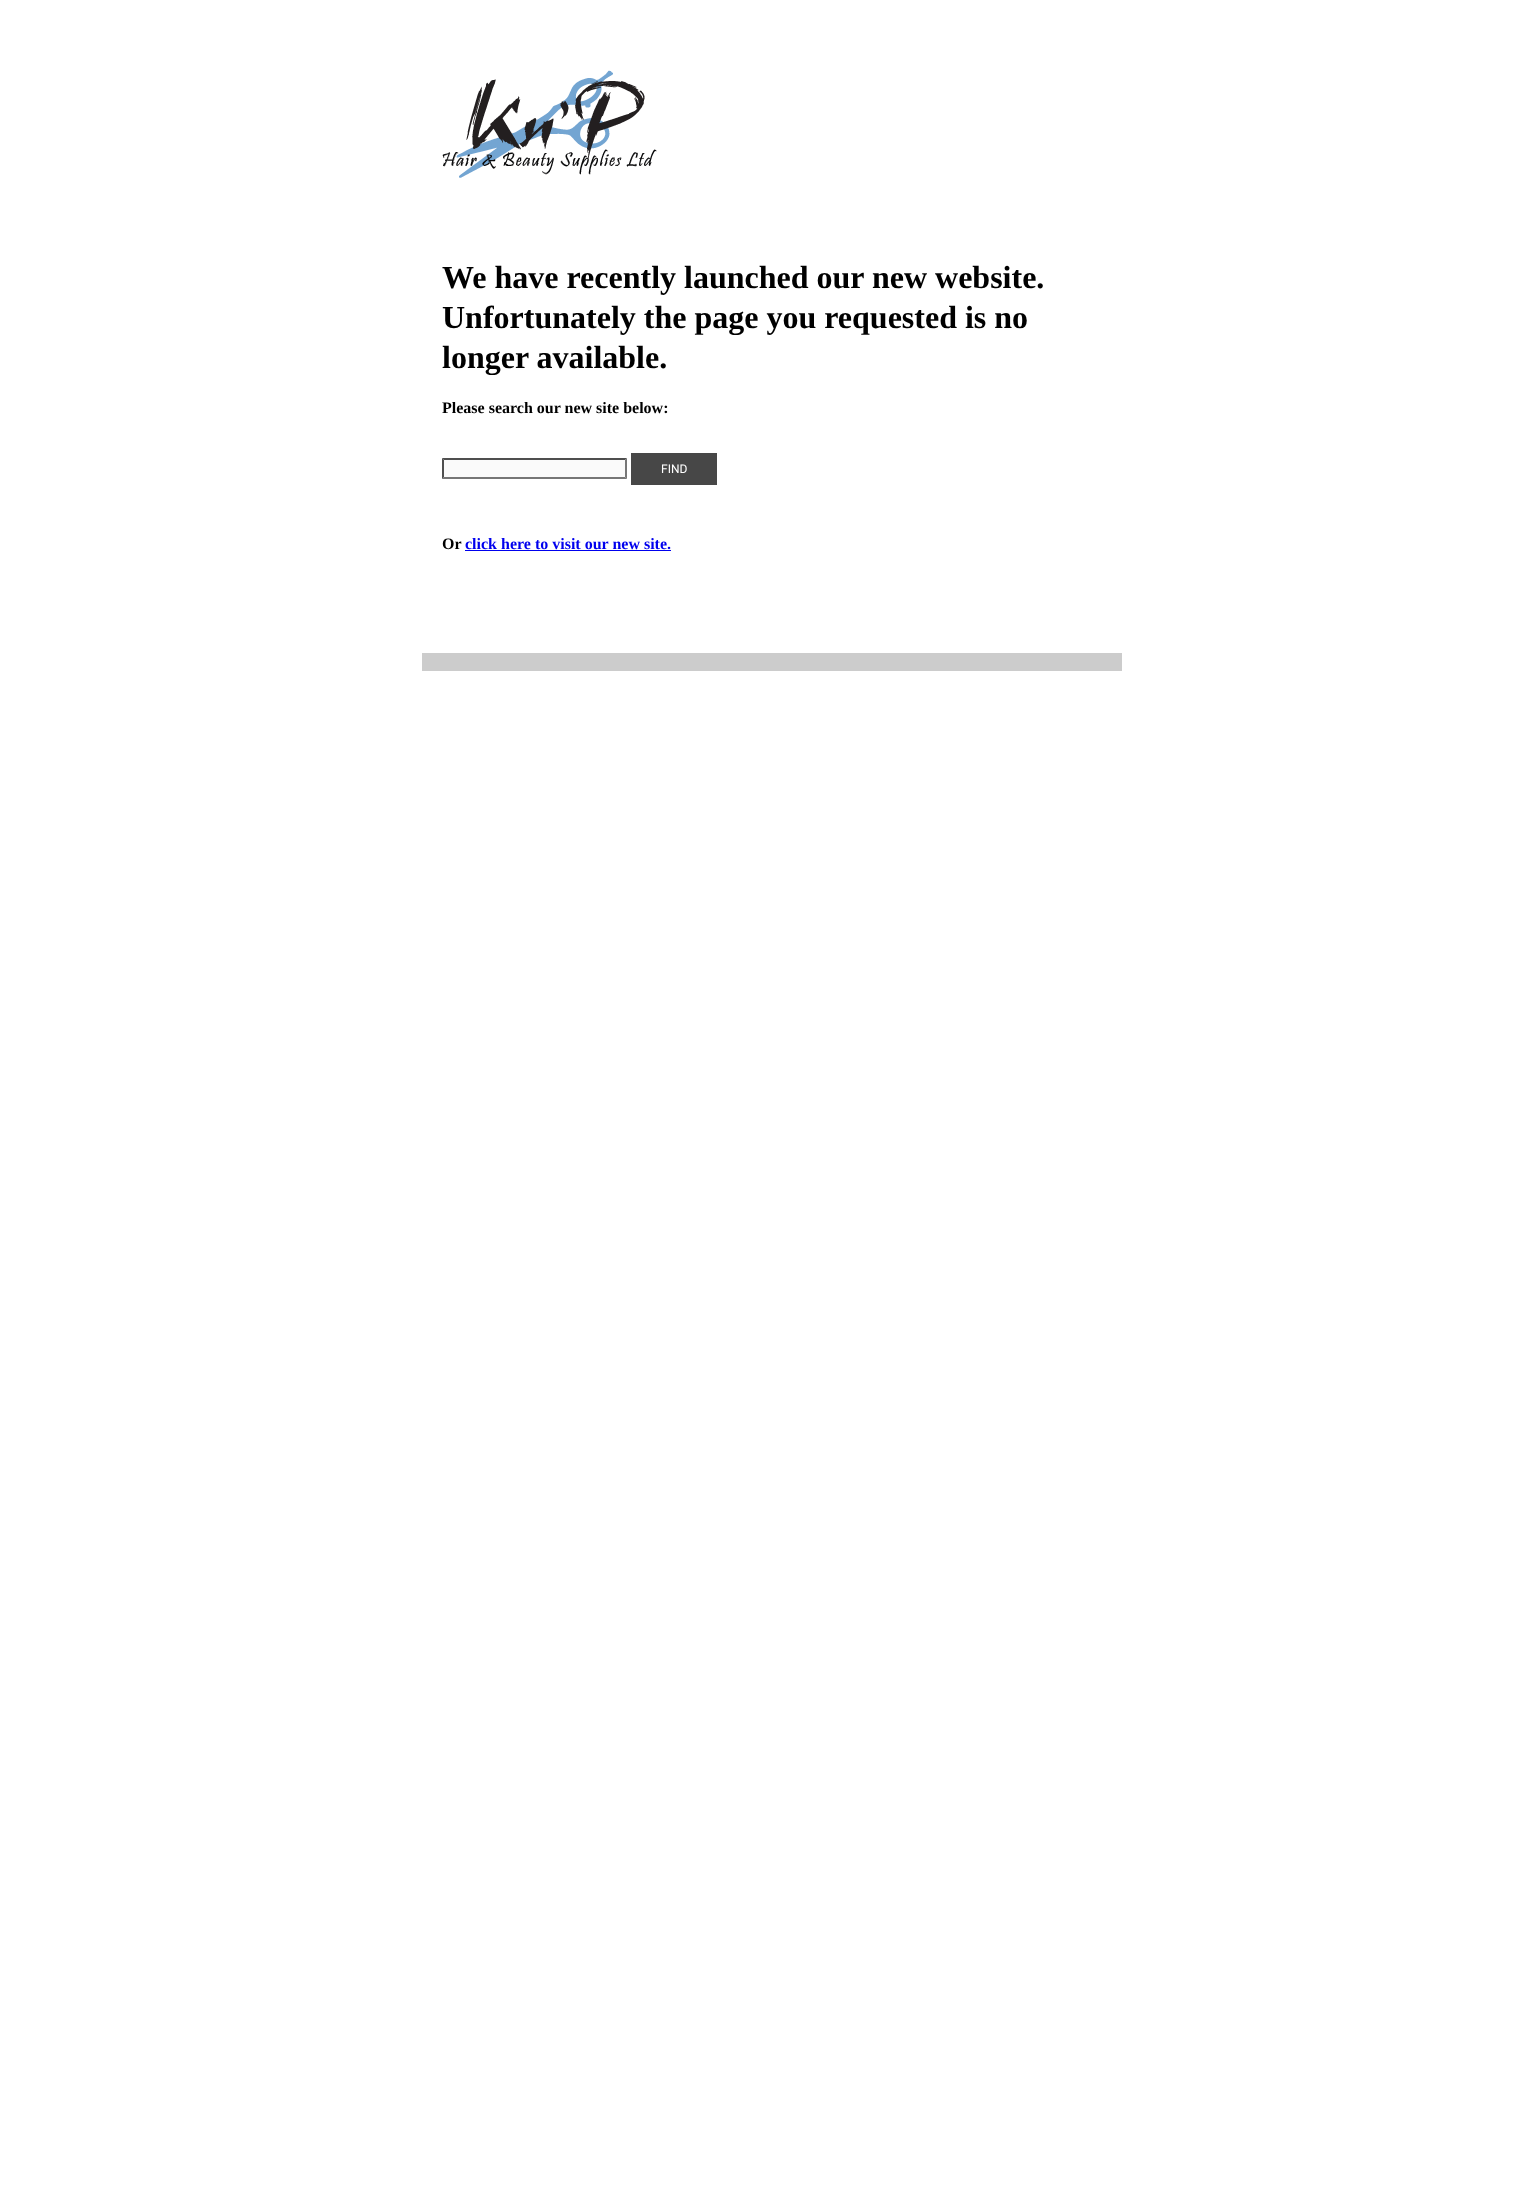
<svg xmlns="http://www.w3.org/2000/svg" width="1527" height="2204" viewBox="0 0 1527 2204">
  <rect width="100%" height="100%" fill="#fff"/>
  <image x="442" y="70" width="215" height="108" href="img/1.png"/>
  <path d="M442 458h185v21H442z" fill="#fafafa"/>
  <path d="M442 458H627L625 460H444Z" fill="#4f4f4f"/>
  <path d="M627 458V479L625 477V460Z" fill="#767676"/>
  <path d="M627 479H442L444 477H625Z" fill="#767676"/>
  <path d="M442 479V458L444 460V477Z" fill="#4f4f4f"/>
  <path d="M631 453h86v32H631z" fill="#474747"/>
  <path d="M465 550h206v1H465z" fill="#00e"/>
  <path d="M422 653h700v18H422z" fill="#ccc"/>
  <g font-family="Liberation Serif" font-size="32" font-weight="bold" fill="#000">
    <text x="442" y="288">We have recently launched our new website.</text>
    <text x="442" y="328">Unfortunately the page you requested is no</text>
    <text x="442" y="368">longer available.</text>
  </g>
  <text x="442" y="413" font-family="Liberation Serif" font-size="16" font-weight="bold" fill="#000">Please search our new site below:</text>
  <text x="661" y="473" font-family="Roboto" font-size="12" fill="#fff">FIND</text>
  <text x="442" y="549" font-family="Liberation Serif" font-size="16" font-weight="bold" fill="#000">Or</text>
  <text x="465" y="549" font-family="Liberation Serif" font-size="16" font-weight="bold" fill="#00e">click here to visit our new site.</text>
</svg>
